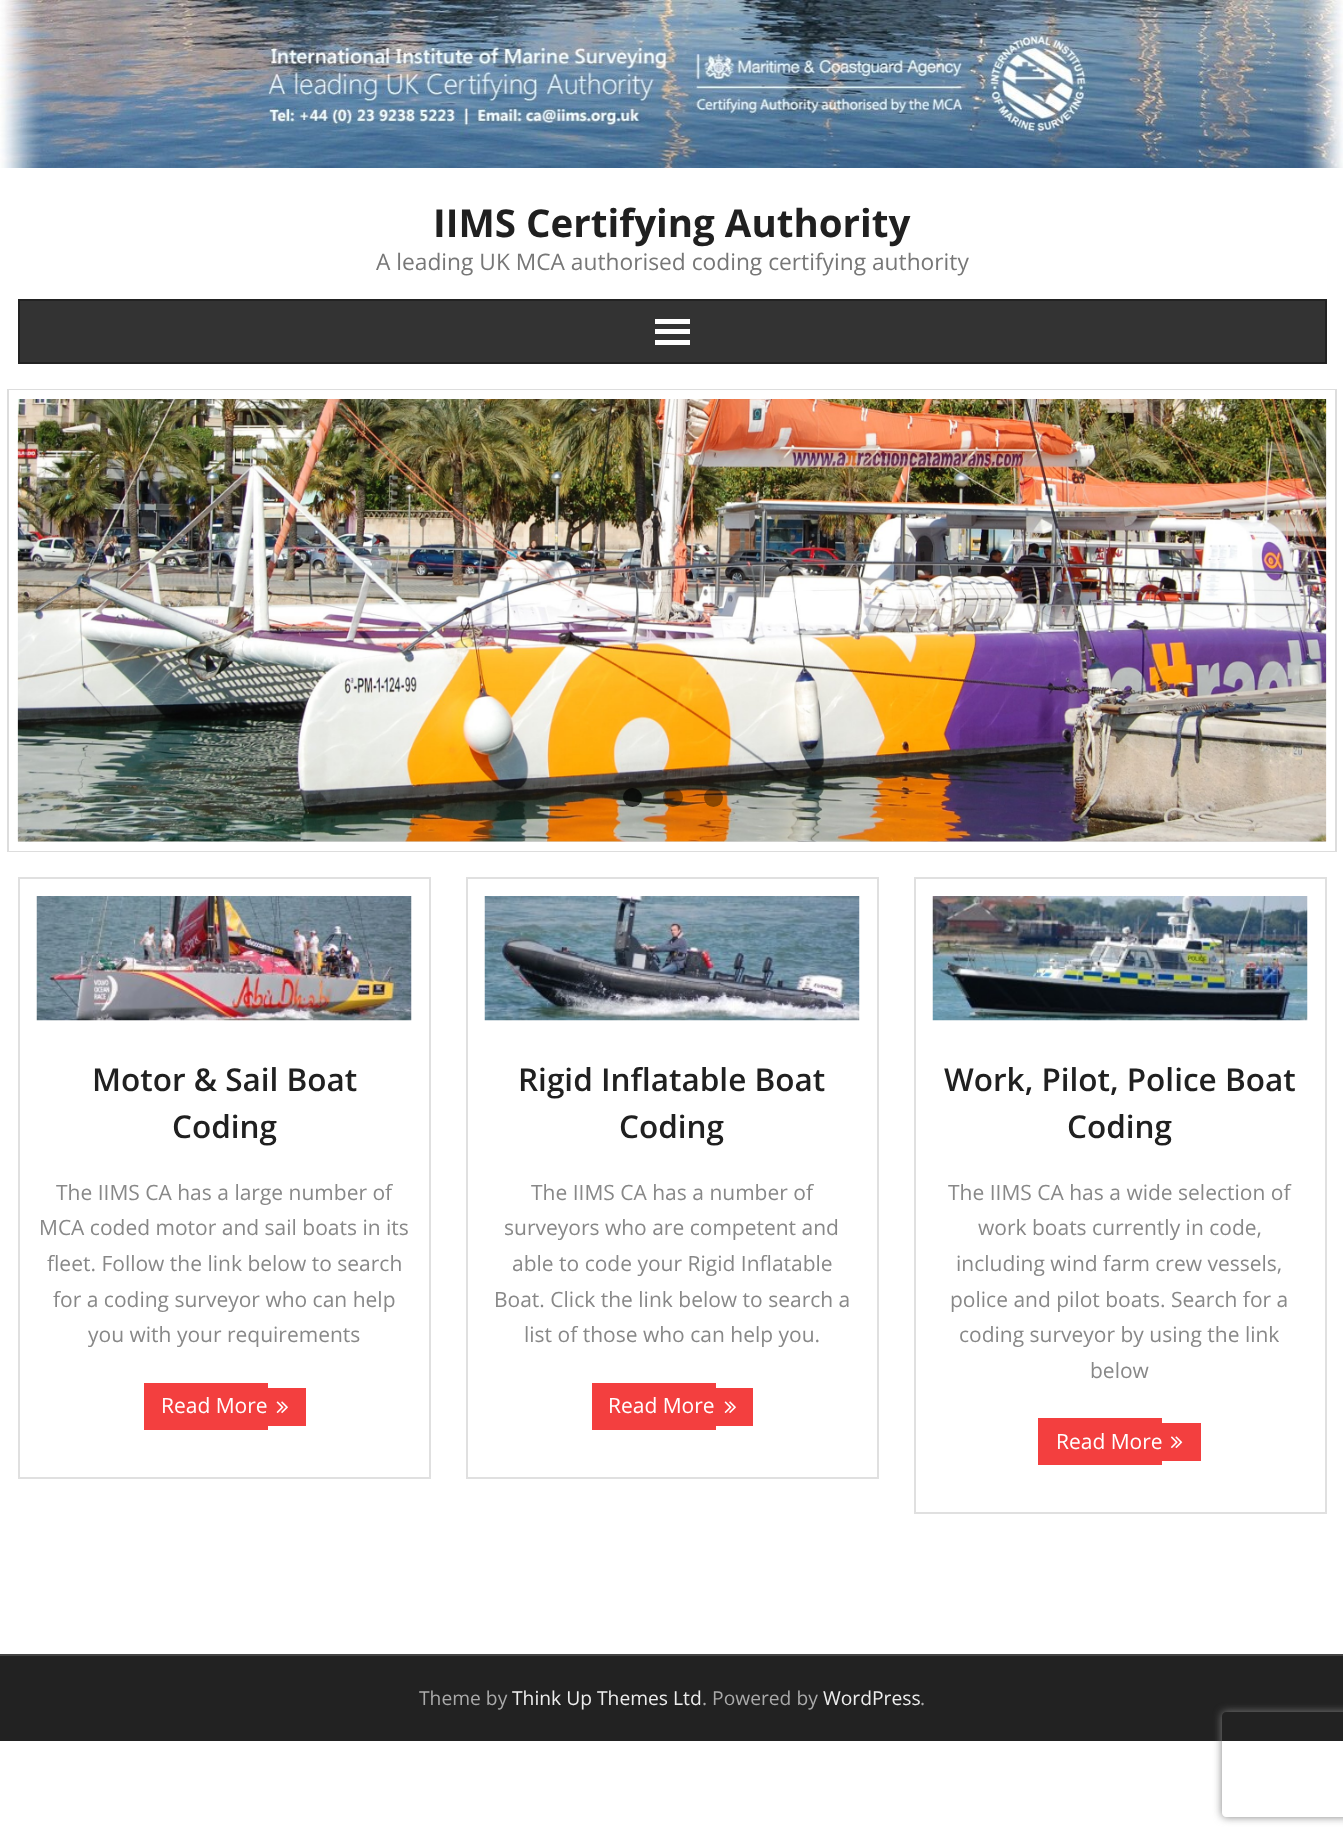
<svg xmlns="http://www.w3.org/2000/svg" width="1343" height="1841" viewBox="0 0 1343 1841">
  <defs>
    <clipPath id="clip1"><path d="M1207 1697H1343V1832H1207ZM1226 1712H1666C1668 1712 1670 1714 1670 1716V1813C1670 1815 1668 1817 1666 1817H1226C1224 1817 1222 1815 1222 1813V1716C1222 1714 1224 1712 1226 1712Z" clip-rule="evenodd"/></clipPath>
  </defs>
  <rect width="100%" height="100%" fill="#fff"/>
  <image x="0" y="0" width="1343" height="168" href="img/1.png"/>
  <path d="M19 300h1307v63H19z" fill="#333" stroke="#222" stroke-width="2"/>
  <path d="M655 319h35v5H655z" fill="#fff"/>
  <path d="M655 329h35v5H655z" fill="#fff"/>
  <path d="M655 340h35v5H655z" fill="#fff"/>
  <path d="M12.5 394.5h1319v452H12.5z" fill="none" stroke="#ddd" stroke-width="11"/>
  <path d="M13.5 394.5h1317v452H13.5z" fill="none" stroke="#fff" stroke-width="9"/>
  <image x="17" y="399" width="1310" height="443" href="img/2.png"/>
  <circle cx="632.5" cy="797.5" r="9.5" fill="#000000b3"/>
  <rect x="663" y="788" width="20" height="19" rx="9.5" fill="#00000066"/>
  <circle cx="713.5" cy="797.5" r="9.5" fill="#00000066"/>
  <path d="M19 878h411v600H19z" fill="none" stroke="#e0e0e0" stroke-width="2"/>
  <image x="36" y="896" width="376" height="125" href="img/3.png"/>
  <path d="M144 1383h124v47H144z" fill="#f33f3f"/>
  <path d="M268 1388h38v38H268z" fill="#f33f3f"/>
  <image x="276" y="1401" width="12" height="12" href="img/4.png"/>
  <path d="M467 878h411v600H467z" fill="none" stroke="#e0e0e0" stroke-width="2"/>
  <image x="484" y="896" width="376" height="125" href="img/5.png"/>
  <path d="M592 1383h124v47H592z" fill="#f33f3f"/>
  <path d="M716 1388h37v38H716z" fill="#f33f3f"/>
  <image x="724" y="1401" width="12" height="12" href="img/4.png"/>
  <path d="M915 878h411v635H915z" fill="none" stroke="#e0e0e0" stroke-width="2"/>
  <image x="932" y="896" width="376" height="125" href="img/6.png"/>
  <path d="M1038 1418h124v47H1038z" fill="#f33f3f"/>
  <path d="M1162 1423h39v38H1162z" fill="#f33f3f"/>
  <image x="1170" y="1436" width="13" height="12" href="img/7.png"/>
  <path d="M0 1656h1343v85H0z" fill="#222"/>
  <path d="M0 1654h1343v2H0z" fill="#444"/>
  <g clip-path="url(#clip1)">
    <rect x="1222" y="1712" width="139" height="105" rx="4" fill="#808080" filter="blur(4.5px)"/>
  </g>
  <text x="433" y="237" font-family="Open Sans" font-size="38.5" font-weight="bold" fill="#202020">IIMS Certifying Authority</text>
  <text x="376" y="270" font-family="Open Sans" font-size="22.75" fill="#777">A leading UK MCA authorised coding certifying authority</text>
  <g font-family="Open Sans" font-size="31.5" font-weight="600" fill="#202020">
    <text x="92" y="1091">Motor &amp; Sail Boat</text>
    <text x="172" y="1138">Coding</text>
  </g>
  <g font-family="Open Sans" font-size="21" fill="#888">
    <text x="56" y="1200">The IIMS CA has a large number of</text>
    <text x="39" y="1235">MCA coded motor and sail boats in its</text>
    <text x="47" y="1271">fleet. Follow the link below to search</text>
    <text x="53" y="1307">for a coding surveyor who can help</text>
    <text x="88" y="1342">you with your requirements</text>
  </g>
  <text x="161" y="1413" font-family="Open Sans" font-size="21" fill="#fff">Read More</text>
  <g font-family="Open Sans" font-size="31.5" font-weight="600" fill="#202020">
    <text x="518" y="1091">Rigid Inflatable Boat</text>
    <text x="619" y="1138">Coding</text>
  </g>
  <g font-family="Open Sans" font-size="21" fill="#888">
    <text x="531" y="1200">The IIMS CA has a number of</text>
    <text x="504" y="1235">surveyors who are competent and</text>
    <text x="512" y="1271">able to code your Rigid Inflatable</text>
    <text x="494" y="1307">Boat. Click the link below to search a</text>
    <text x="524" y="1342">list of those who can help you.</text>
  </g>
  <text x="608" y="1413" font-family="Open Sans" font-size="21" fill="#fff">Read More</text>
  <g font-family="Open Sans" font-size="31.5" font-weight="600" fill="#202020">
    <text x="944" y="1091">Work, Pilot, Police Boat</text>
    <text x="1067" y="1138">Coding</text>
  </g>
  <g font-family="Open Sans" font-size="21" fill="#888">
    <text x="948" y="1200">The IIMS CA has a wide selection of</text>
    <text x="978" y="1235">work boats currently in code,</text>
    <text x="956" y="1271">including wind farm crew vessels,</text>
    <text x="950" y="1307">police and pilot boats. Search for a</text>
    <text x="959" y="1342">coding surveyor by using the link</text>
    <text x="1090" y="1378">below</text>
  </g>
  <text x="1056" y="1449" font-family="Open Sans" font-size="21" fill="#fff">Read More</text>
  <text x="419" y="1705" font-family="Open Sans" font-size="19.25" fill="#aaa">Theme by</text>
  <text x="512" y="1705" font-family="Open Sans" font-size="19.25" fill="#eee">Think Up Themes Ltd</text>
  <text x="702" y="1705" font-family="Open Sans" font-size="19.25" fill="#aaa">. Powered by</text>
  <text x="823" y="1705" font-family="Open Sans" font-size="19.25" fill="#eee">WordPress</text>
  <text x="920" y="1705" font-family="Open Sans" font-size="19.25" fill="#aaa">.</text>
</svg>
